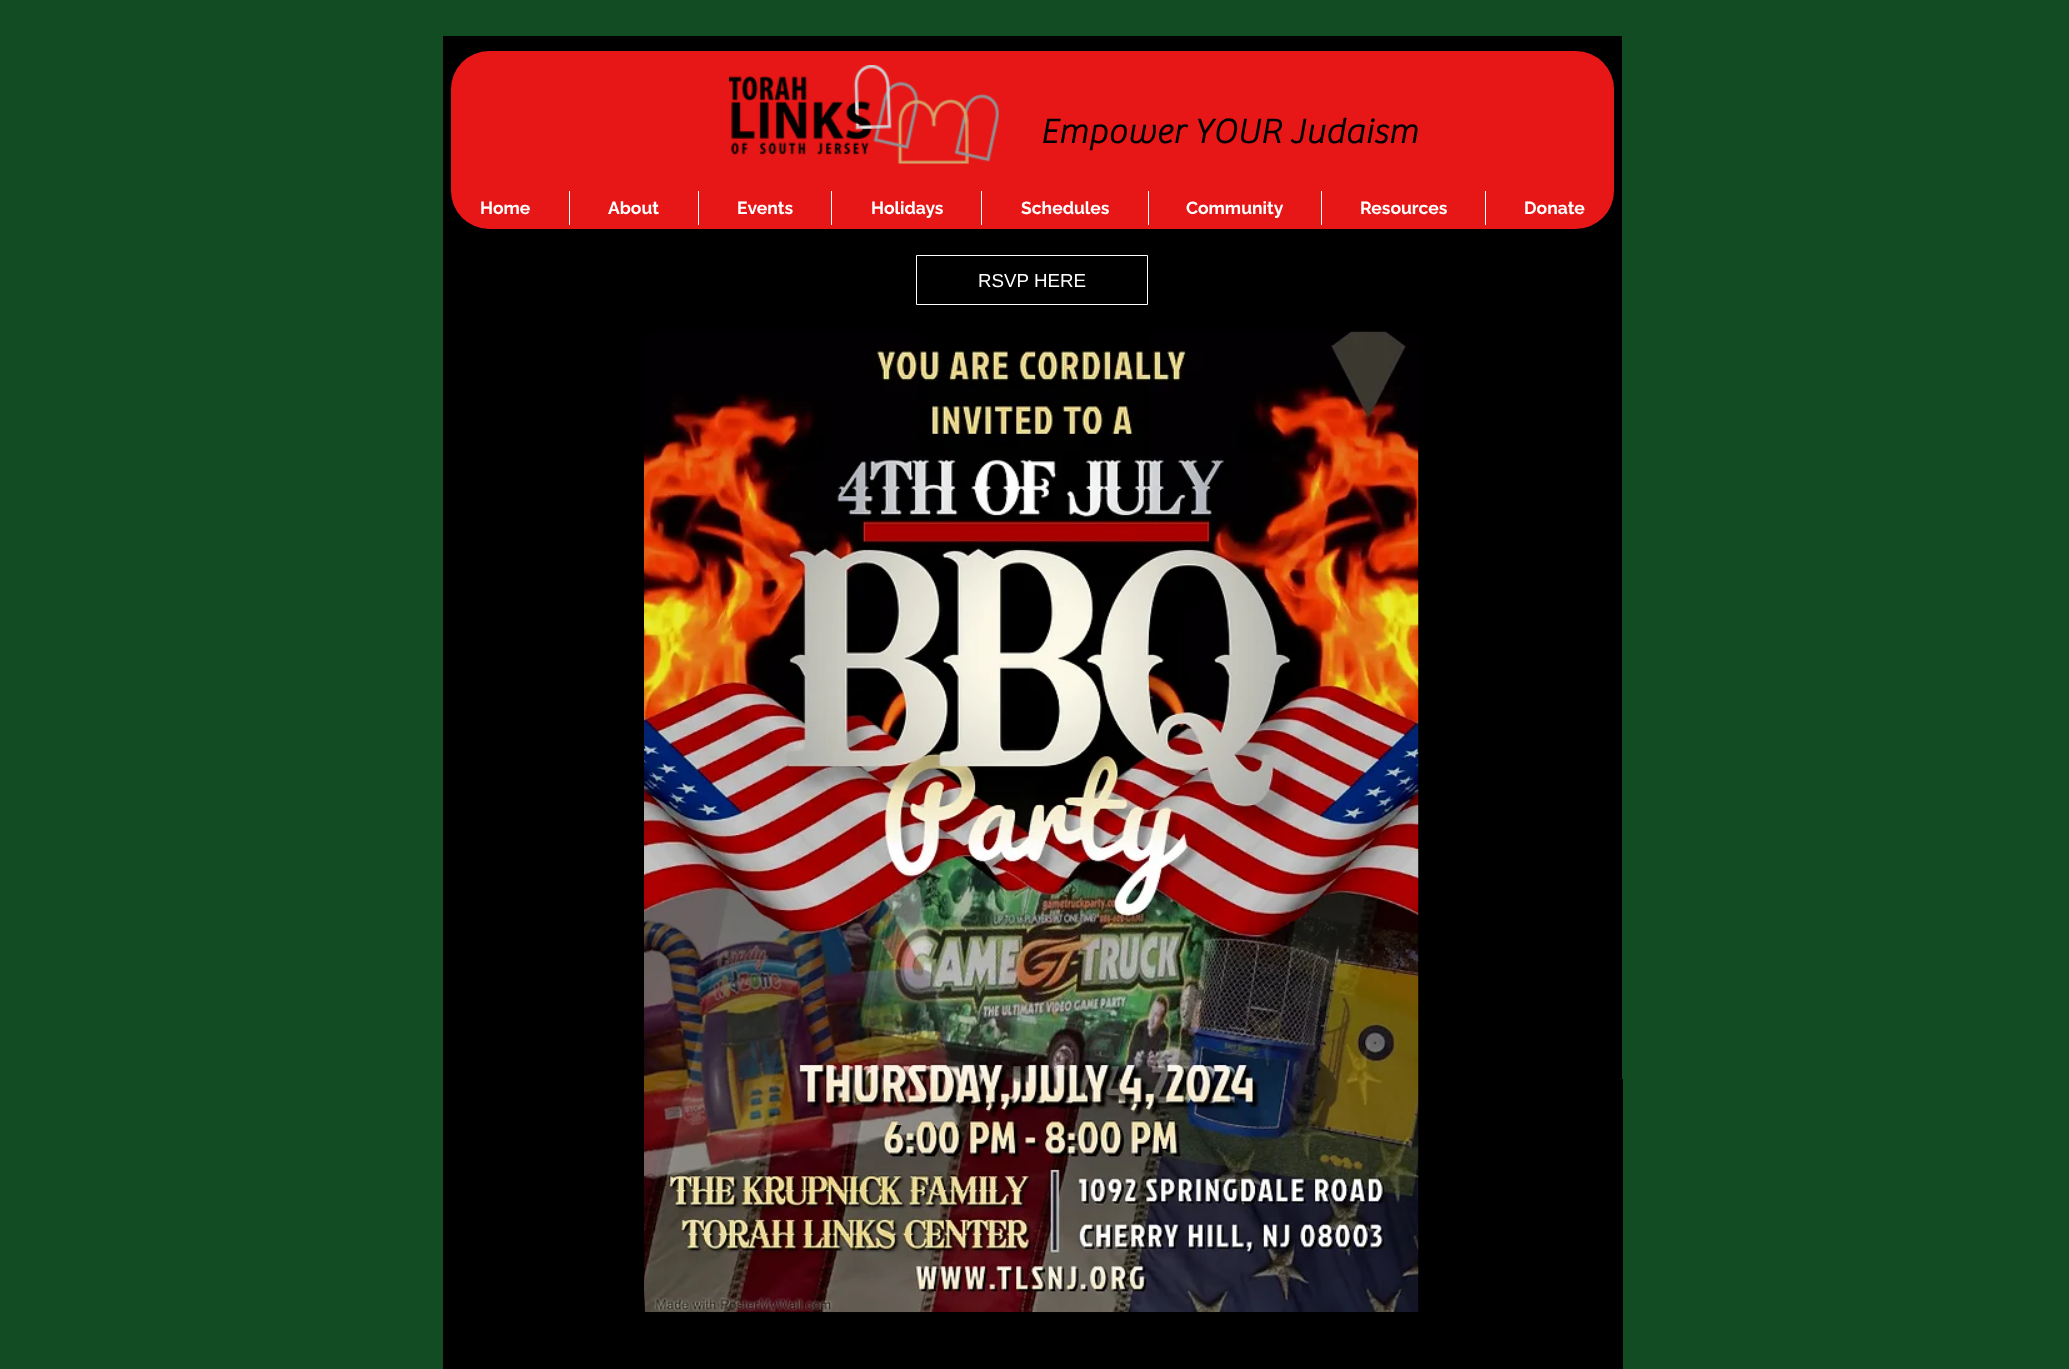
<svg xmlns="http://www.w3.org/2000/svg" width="2069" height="1369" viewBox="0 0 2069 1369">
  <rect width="100%" height="100%" fill="#114c22"/>
  <path d="M443 36h1179v1043H443z" fill="#000"/>
  <rect x="451" y="51" width="1163" height="178" rx="38" fill="#e81717"/>
  <image x="728" y="65" width="271" height="99" href="img/1.png"/>
  <path d="M569 191h1v34H569z" fill="#fff"/>
  <path d="M698 191h1v34H698z" fill="#fff"/>
  <path d="M831 191h1v34H831z" fill="#fff"/>
  <path d="M981 191h1v34H981z" fill="#fff"/>
  <path d="M1148 191h1v34H1148z" fill="#fff"/>
  <path d="M1321 191h1v34H1321z" fill="#fff"/>
  <path d="M1485 191h1v34H1485z" fill="#fff"/>
  <path d="M916.5 255.5h231v49H916.5z" fill="none" stroke="#fff"/>
  <path d="M443 1079h1180v290H443z" fill="#000"/>
  <image x="644" y="331" width="775" height="982" href="img/2.png"/>
  <text x="1040" y="143" font-family="'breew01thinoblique'" font-size="35" font-weight="bold" letter-spacing="1.05" fill="#000">Empower YOUR Judaism</text>
  <g font-family="Raleway" font-size="17.5" font-weight="bold" fill="#fff">
    <text x="480" y="214">Home</text>
    <text x="608" y="214">About</text>
    <text x="737" y="214">Events</text>
    <text x="871" y="214">Holidays</text>
    <text x="1021" y="214">Schedules</text>
    <text x="1186" y="214">Community</text>
    <text x="1360" y="214">Resources</text>
    <text x="1524" y="214">Donate</text>
  </g>
  <text x="978" y="287" font-family="Liberation Sans" font-size="18.75" fill="#fff">RSVP HERE</text>
</svg>
